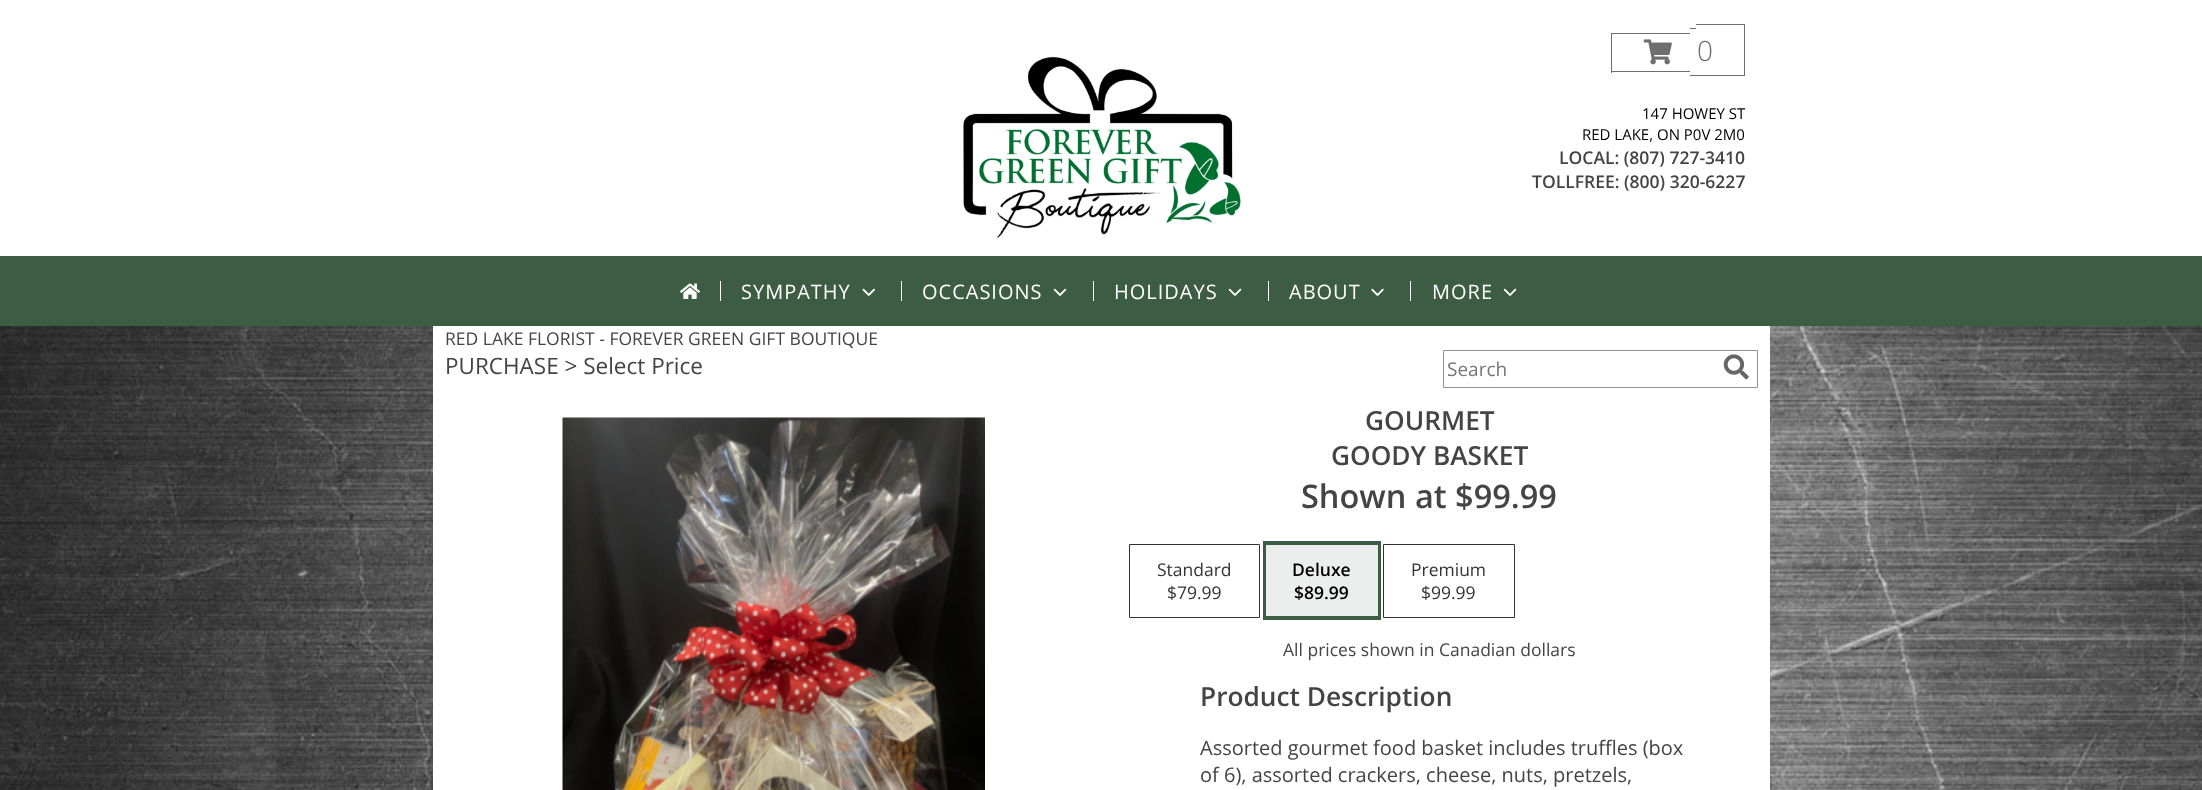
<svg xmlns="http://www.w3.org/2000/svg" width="2202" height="790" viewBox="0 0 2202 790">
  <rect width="100%" height="100%" fill="#fff"/>
  <image x="0" y="326" width="2202" height="464" href="img/1.png"/>
  <path d="M433 326h1337v464H433z" fill="#fff"/>
  <image x="963" y="56" width="278" height="183" href="img/2.png"/>
  <path d="M1611 33h79v1H1611z" fill="#6e6e6e"/>
  <path d="M1611 71h79v1H1611z" fill="#6e6e6e"/>
  <path d="M1611 33h1v40H1611z" fill="#6e6e6e"/>
  <path d="M1690 28h6v1H1690z" fill="#6e6e6e"/>
  <path d="M1690 75h6v1H1690z" fill="#6e6e6e"/>
  <path d="M1696 24h49v1H1696z" fill="#6e6e6e"/>
  <path d="M1744 24h1v52H1744z" fill="#6e6e6e"/>
  <path d="M1696 75h49v1H1696z" fill="#6e6e6e"/>
  <image x="1643" y="39" width="29" height="26" href="img/3.png"/>
  <path d="M0 256h2202v70H0z" fill="#3c5d43"/>
  <image x="680" y="283" width="20" height="16" href="img/4.png"/>
  <path d="M720 281h1v20H720z" fill="#fff"/>
  <image x="862" y="288" width="13" height="8" href="img/5.png"/>
  <path d="M901 281h1v20H901z" fill="#fff"/>
  <image x="1053" y="288" width="14" height="8" href="img/6.png"/>
  <path d="M1093 281h1v20H1093z" fill="#fff"/>
  <image x="1228" y="288" width="14" height="8" href="img/6.png"/>
  <path d="M1268 281h1v20H1268z" fill="#fff"/>
  <image x="1371" y="288" width="13" height="8" href="img/7.png"/>
  <path d="M1410 281h1v20H1410z" fill="#fff"/>
  <image x="1503" y="288" width="14" height="8" href="img/6.png"/>
  <path d="M1443.5 350.5h314v37H1443.5z" fill="none" stroke="#919191"/>
  <image x="1723" y="354" width="26" height="26" href="img/8.png"/>
  <image x="562" y="417" width="423" height="373" href="img/9.png"/>
  <path d="M1129.5 544.5h130v73H1129.5z" fill="none" stroke="#333"/>
  <path d="M1265 543h114v75H1265z" fill="none" stroke="#3c5d43" stroke-width="4"/>
  <path d="M1266 545h112v71H1266z" fill="#ebeeec"/>
  <path d="M1383.5 544.5h131v73H1383.5z" fill="none" stroke="#333"/>
  <text x="1697" y="61" font-family="Open Sans" font-size="28" font-weight="300" fill="#6e6e6e">0</text>
  <g font-family="Open Sans" font-size="15" fill="#000">
    <text x="1642" y="119">147 HOWEY ST</text>
    <text x="1582" y="140">RED LAKE, ON P0V 2M0</text>
  </g>
  <g font-family="Open Sans" font-size="17.5" font-weight="600" fill="#444">
    <text x="1559" y="164">LOCAL: (807) 727-3410</text>
    <text x="1532" y="188">TOLLFREE: (800) 320-6227</text>
  </g>
  <g font-family="Open Sans" font-size="20" letter-spacing="1" fill="#fff">
    <text x="741" y="299">SYMPATHY</text>
    <text x="922" y="299">OCCASIONS</text>
    <text x="1114" y="299">HOLIDAYS</text>
    <text x="1289" y="299">ABOUT</text>
    <text x="1432" y="299">MORE</text>
  </g>
  <text x="445" y="345" font-family="Open Sans" font-size="17.5" fill="#444">RED LAKE FLORIST - FOREVER GREEN GIFT BOUTIQUE</text>
  <text x="445" y="374" font-family="Open Sans" font-size="22.5" fill="#444">PURCHASE &gt; Select Price</text>
  <text x="1447" y="376" font-family="Open Sans" font-size="19" fill="#757575">Search</text>
  <g font-family="Open Sans" font-size="26.25" font-weight="600" fill="#444">
    <text x="1365" y="430">GOURMET</text>
    <text x="1331" y="465">GOODY BASKET</text>
  </g>
  <text x="1301" y="508" font-family="Open Sans" font-size="32.5" font-weight="600" fill="#444">Shown at $99.99</text>
  <g font-family="Open Sans" font-size="17.5" fill="#333">
    <text x="1157" y="576">Standard</text>
    <text x="1167" y="599">$79.99</text>
  </g>
  <g font-family="Open Sans" font-size="17.5" font-weight="600" fill="#000">
    <text x="1292" y="576">Deluxe</text>
    <text x="1294" y="599">$89.99</text>
  </g>
  <g font-family="Open Sans" font-size="17.5" fill="#333">
    <text x="1411" y="576">Premium</text>
    <text x="1421" y="599">$99.99</text>
  </g>
  <text x="1283" y="656" font-family="Open Sans" font-size="17.5" fill="#444">All prices shown in Canadian dollars</text>
  <text x="1200" y="706" font-family="Open Sans" font-size="26.25" font-weight="600" fill="#444">Product Description</text>
  <g font-family="Open Sans" font-size="20" fill="#444">
    <text x="1200" y="755">Assorted gourmet food basket includes truffles (box</text>
    <text x="1200" y="782">of 6), assorted crackers, cheese, nuts, pretzels,</text>
  </g>
</svg>
